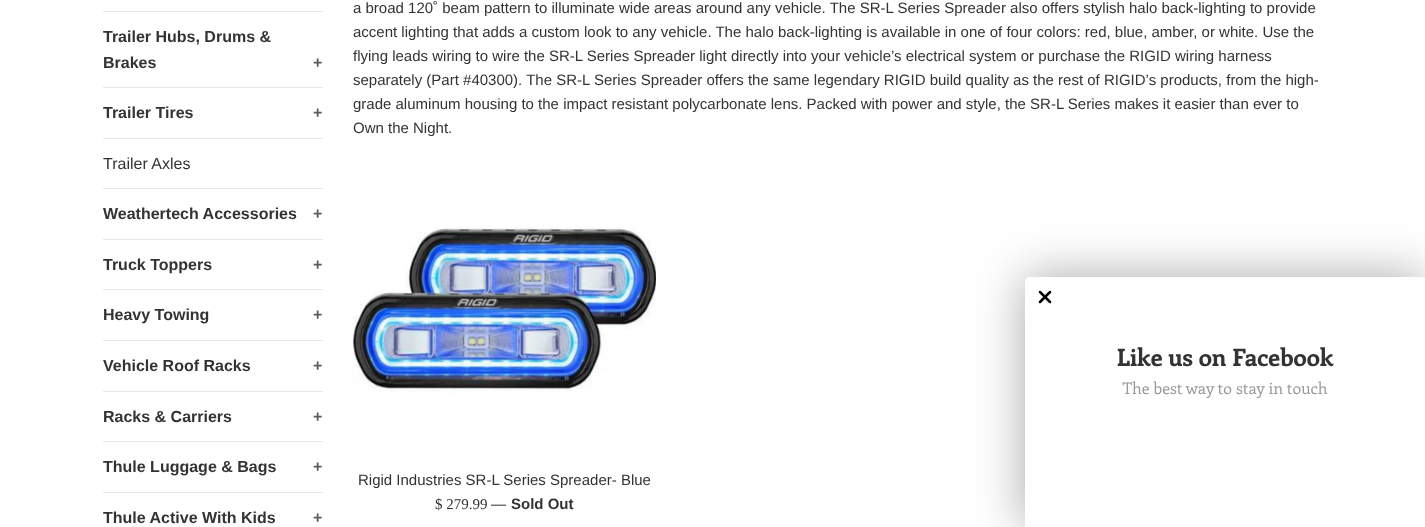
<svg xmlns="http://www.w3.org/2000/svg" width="1425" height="527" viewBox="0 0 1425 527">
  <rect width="100%" height="100%" fill="#fff"/>
  <path d="M103 11h220v1H103z" fill="#e8e8e8"/>
  <path d="M103 87h220v1H103z" fill="#e8e8e8"/>
  <path d="M103 138h220v1H103z" fill="#e8e8e8"/>
  <path d="M103 188h220v1H103z" fill="#e8e8e8"/>
  <path d="M103 239h220v1H103z" fill="#e8e8e8"/>
  <path d="M103 289h220v1H103z" fill="#e8e8e8"/>
  <path d="M103 340h220v1H103z" fill="#e8e8e8"/>
  <path d="M103 391h220v1H103z" fill="#e8e8e8"/>
  <path d="M103 441h220v1H103z" fill="#e8e8e8"/>
  <path d="M103 492h220v1H103z" fill="#e8e8e8"/>
  <image x="352" y="226" width="304" height="167" href="img/1.png"/>
  <rect x="1025" y="277" width="400" height="250" rx="4" fill="#00000059" filter="blur(25px)"/>
  <path d="M1029 277H1425V527H1025V281C1025 279 1027 277 1029 277Z" fill="#fff"/>
  <image x="1038" y="290" width="296" height="108" href="img/2.png"/>
  <g font-family="Liberation Sans" font-size="16" font-weight="bold" fill="#333">
    <text x="103" y="42">Trailer Hubs, Drums &amp;</text>
    <text x="103" y="68">Brakes</text>
  </g>
  <text x="313" y="68" font-family="Liberation Sans" font-size="16" font-weight="bold" fill="#5c5c5c">+</text>
  <text x="103" y="118" font-family="Liberation Sans" font-size="16" font-weight="bold" fill="#333">Trailer Tires</text>
  <text x="313" y="118" font-family="Liberation Sans" font-size="16" font-weight="bold" fill="#5c5c5c">+</text>
  <text x="103" y="169" font-family="Liberation Sans" font-size="16" fill="#333">Trailer Axles</text>
  <text x="103" y="219" font-family="Liberation Sans" font-size="16" font-weight="bold" fill="#333">Weathertech Accessories</text>
  <text x="313" y="219" font-family="Liberation Sans" font-size="16" font-weight="bold" fill="#5c5c5c">+</text>
  <text x="103" y="270" font-family="Liberation Sans" font-size="16" font-weight="bold" fill="#333">Truck Toppers</text>
  <text x="313" y="270" font-family="Liberation Sans" font-size="16" font-weight="bold" fill="#5c5c5c">+</text>
  <text x="103" y="320" font-family="Liberation Sans" font-size="16" font-weight="bold" fill="#333">Heavy Towing</text>
  <text x="313" y="320" font-family="Liberation Sans" font-size="16" font-weight="bold" fill="#5c5c5c">+</text>
  <text x="103" y="371" font-family="Liberation Sans" font-size="16" font-weight="bold" fill="#333">Vehicle Roof Racks</text>
  <text x="313" y="371" font-family="Liberation Sans" font-size="16" font-weight="bold" fill="#5c5c5c">+</text>
  <text x="103" y="422" font-family="Liberation Sans" font-size="16" font-weight="bold" fill="#333">Racks &amp; Carriers</text>
  <text x="313" y="422" font-family="Liberation Sans" font-size="16" font-weight="bold" fill="#5c5c5c">+</text>
  <text x="103" y="472" font-family="Liberation Sans" font-size="16" font-weight="bold" fill="#333">Thule Luggage &amp; Bags</text>
  <text x="313" y="472" font-family="Liberation Sans" font-size="16" font-weight="bold" fill="#5c5c5c">+</text>
  <text x="103" y="523" font-family="Liberation Sans" font-size="16" font-weight="bold" fill="#333">Thule Active With Kids</text>
  <text x="313" y="523" font-family="Liberation Sans" font-size="16" font-weight="bold" fill="#5c5c5c">+</text>
  <g font-family="Liberation Sans" font-size="15" fill="#333">
    <text x="353" y="13">a broad 120˚ beam pattern to illuminate wide areas around any vehicle. The SR-L Series Spreader also offers stylish halo back-lighting to provide</text>
    <text x="353" y="37">accent lighting that adds a custom look to any vehicle. The halo back-lighting is available in one of four colors: red, blue, amber, or white. Use the</text>
    <text x="353" y="61">flying leads wiring to wire the SR-L Series Spreader light directly into your vehicle’s electrical system or purchase the RIGID wiring harness</text>
    <text x="353" y="85">separately (Part #40300). The SR-L Series Spreader offers the same legendary RIGID build quality as the rest of RIGID’s products, from the high-</text>
    <text x="353" y="109">grade aluminum housing to the impact resistant polycarbonate lens. Packed with power and style, the SR-L Series makes it easier than ever to</text>
    <text x="353" y="133">Own the Night.</text>
    <text x="358" y="485">Rigid Industries SR-L Series Spreader- Blue</text>
  </g>
  <text x="435" y="509" font-family="Liberation Serif" font-size="15" fill="#333">$ 279.99</text>
  <text x="491" y="509" font-family="Liberation Sans" font-size="15" fill="#333">—</text>
  <text x="511" y="509" font-family="Liberation Sans" font-size="15" font-weight="bold" fill="#333">Sold Out</text>
</svg>
